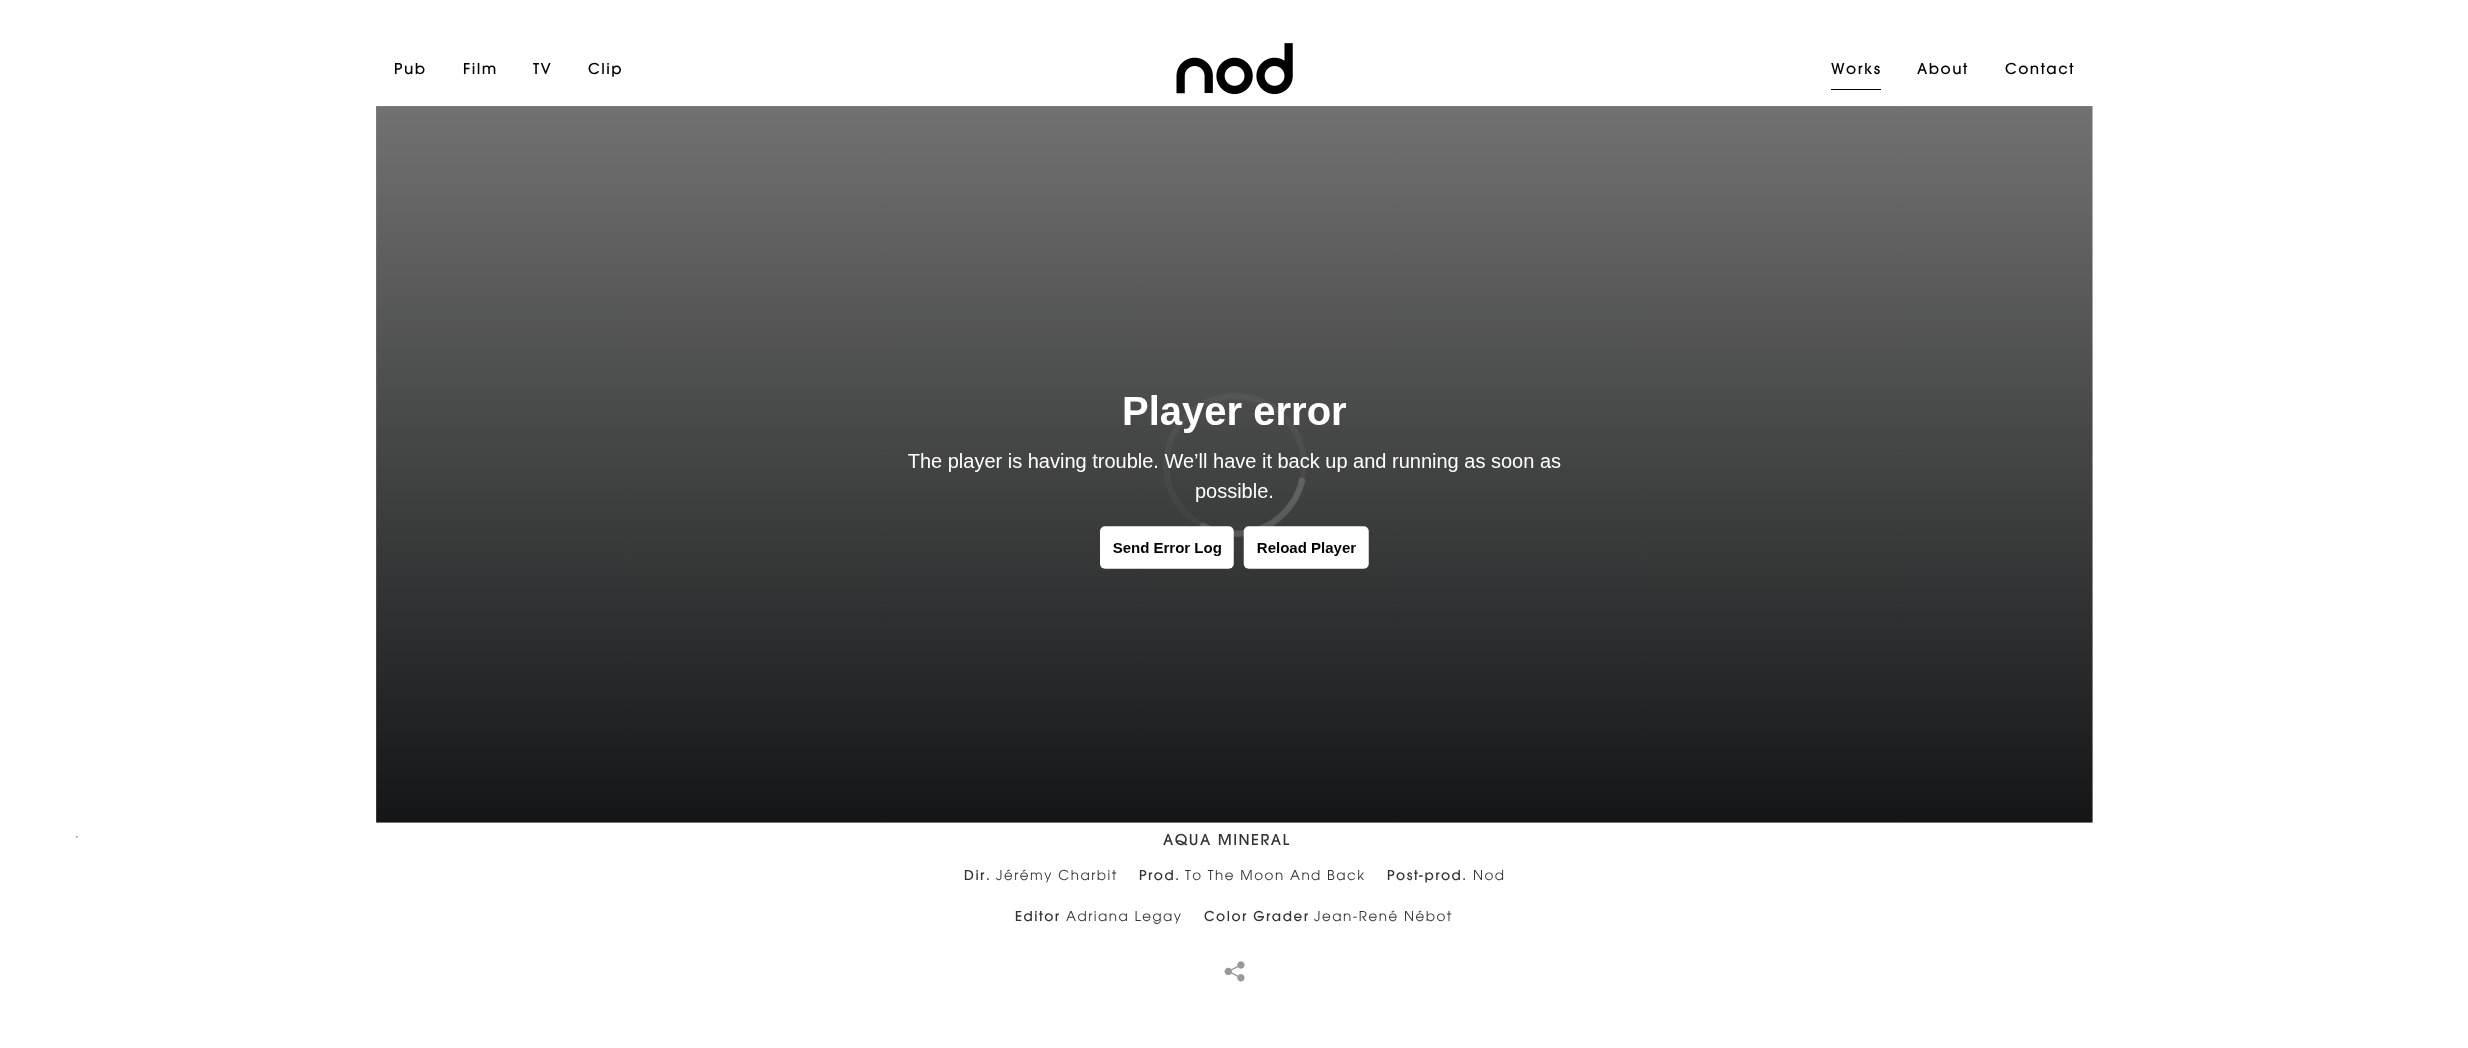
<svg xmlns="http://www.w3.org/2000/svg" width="2468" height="1048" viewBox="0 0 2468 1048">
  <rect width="100%" height="100%" fill="#fff"/>
  <image x="1176" y="43" width="117" height="52" href="img/1.png"/>
  <path d="M1831 89h50v1H1831z" fill="#000"/>
  <image x="376" y="106" width="1717" height="717" href="img/2.png"/>
  <image x="76" y="836" width="2" height="2" href="img/3.png"/>
  <image x="1224" y="961" width="21" height="21" href="img/4.png"/>
  <g font-family="'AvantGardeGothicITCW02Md'" font-size="15" letter-spacing="1.5" fill="#000">
    <text x="394" y="74">Pub</text>
    <text x="463" y="74">Film</text>
    <text x="533" y="74">TV</text>
    <text x="588" y="74">Clip</text>
    <text x="1831" y="74">Works</text>
    <text x="1917" y="74">About</text>
    <text x="2005" y="74">Contact</text>
  </g>
  <text x="1163" y="845" font-family="'AvantGardeGothicITCW02Md'" font-size="15" letter-spacing="1.5" fill="#333">AQUA MINERAL</text>
  <text x="964" y="880" font-family="'AvantGardeGothicITCW02Md'" font-size="13.5" letter-spacing="1.5" fill="#333">Dir.</text>
  <text x="996" y="880" font-family="'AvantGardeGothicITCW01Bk'" font-size="13.5" letter-spacing="1.5" fill="#333">Jérémy Charbit</text>
  <text x="1139" y="880" font-family="'AvantGardeGothicITCW02Md'" font-size="13.5" letter-spacing="1.5" fill="#333">Prod.</text>
  <text x="1185" y="880" font-family="'AvantGardeGothicITCW01Bk'" font-size="13.5" letter-spacing="1.5" fill="#333">To The Moon And Back</text>
  <text x="1387" y="880" font-family="'AvantGardeGothicITCW02Md'" font-size="13.5" letter-spacing="1.5" fill="#333">Post-prod.</text>
  <text x="1473" y="880" font-family="'AvantGardeGothicITCW01Bk'" font-size="13.5" letter-spacing="1.5" fill="#333">Nod</text>
  <text x="1015" y="921" font-family="'AvantGardeGothicITCW02Md'" font-size="13.5" letter-spacing="1.5" fill="#333">Editor</text>
  <text x="1066" y="921" font-family="'AvantGardeGothicITCW01Bk'" font-size="13.5" letter-spacing="1.5" fill="#333">Adriana Legay</text>
  <text x="1204" y="921" font-family="'AvantGardeGothicITCW02Md'" font-size="13.5" letter-spacing="1.5" fill="#333">Color Grader</text>
  <text x="1314" y="921" font-family="'AvantGardeGothicITCW01Bk'" font-size="13.5" letter-spacing="1.5" fill="#333">Jean-René Nébot</text>
</svg>
